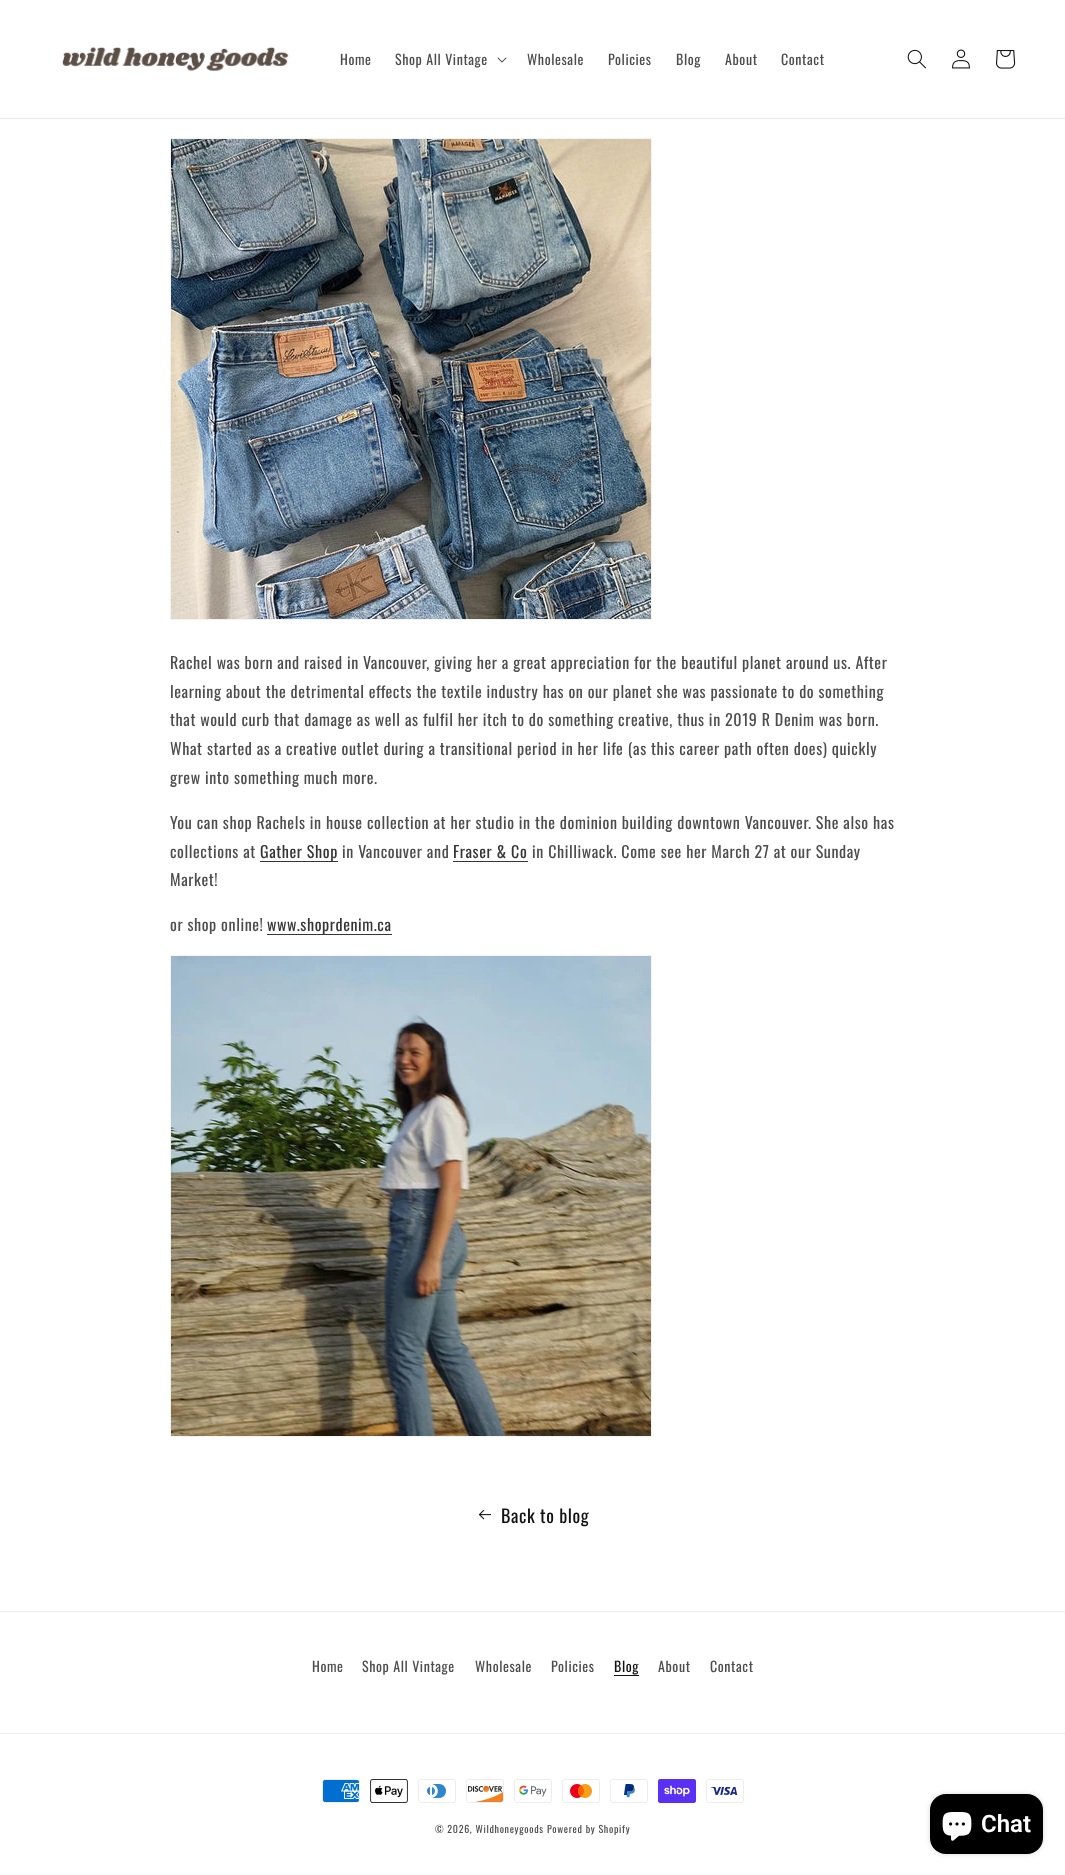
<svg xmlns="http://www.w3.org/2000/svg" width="1065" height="1875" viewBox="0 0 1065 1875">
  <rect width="100%" height="100%" fill="#fff"/>
  <path d="M0 118h1065v1H0z" fill="#ececec"/>
  <image x="62" y="46" width="227" height="25" href="img/1.png"/>
  <image x="497" y="57" width="10" height="6" href="img/2.png"/>
  <image x="907" y="49" width="19" height="20" href="img/3.png"/>
  <image x="952" y="49" width="18" height="20" href="img/4.png"/>
  <image x="996" y="50" width="20" height="19" href="img/5.png"/>
  <path d="M170.5 138.5h481v481H170.5z" fill="none" stroke="#f3f3f3"/>
  <image x="171" y="139" width="480" height="480" href="img/6.png"/>
  <path d="M260 861h78v1H260z" fill="#363636"/>
  <path d="M453 861h75v1H453z" fill="#363636"/>
  <path d="M267 934h125v1H267z" fill="#363636"/>
  <path d="M170.5 955.5h481v481H170.5z" fill="none" stroke="#f3f3f3"/>
  <image x="171" y="956" width="480" height="480" href="img/7.png"/>
  <image x="478" y="1510" width="13" height="10" href="img/8.png"/>
  <path d="M0 1611h1065v1H0z" fill="#ececec"/>
  <path d="M614 1675h25v1H614z" fill="#121212"/>
  <path d="M0 1733h1065v1H0z" fill="#ececec"/>
  <image x="322" y="1779" width="38" height="24" href="img/9.png"/>
  <image x="370" y="1779" width="38" height="24" href="img/10.png"/>
  <image x="418" y="1779" width="38" height="24" href="img/11.png"/>
  <image x="466" y="1779" width="38" height="24" href="img/12.png"/>
  <image x="514" y="1779" width="38" height="24" href="img/13.png"/>
  <image x="562" y="1779" width="38" height="24" href="img/14.png"/>
  <image x="610" y="1779" width="38" height="24" href="img/15.png"/>
  <image x="658" y="1779" width="38" height="24" href="img/16.png"/>
  <image x="706" y="1779" width="38" height="24" href="img/17.png"/>
  <rect x="930" y="1794" width="113" height="60" rx="16" fill="#00000026" filter="blur(2.5px)"/>
  <rect x="930" y="1794" width="113" height="60" rx="16" fill="#000"/>
  <image x="942" y="1812" width="30" height="29" href="img/18.png"/>
  <g font-family="Oswald" font-size="14" letter-spacing="0.6" fill="#4d4d4d">
    <text x="340" y="65">Home</text>
    <text x="395" y="65">Shop All Vintage</text>
    <text x="527" y="65">Wholesale</text>
    <text x="608" y="65">Policies</text>
    <text x="676" y="65">Blog</text>
    <text x="725" y="65">About</text>
    <text x="781" y="65">Contact</text>
  </g>
  <g font-family="Oswald" font-size="16" letter-spacing="0.6" fill="#4d4d4d">
    <text x="170" y="669">Rachel was born and raised in Vancouver, giving her a great appreciation for the beautiful planet around us. After</text>
    <text x="170" y="698">learning about the detrimental effects the textile industry has on our planet she was passionate to do something</text>
    <text x="170" y="726">that would curb that damage as well as fulfil her itch to do something creative, thus in 2019 R Denim was born.</text>
    <text x="170" y="755">What started as a creative outlet during a transitional period in her life (as this career path often does) quickly</text>
    <text x="170" y="784">grew into something much more.</text>
    <text x="170" y="829">You can shop Rachels in house collection at her studio in the dominion building downtown Vancouver. She also has</text>
    <text x="170" y="858">collections at</text>
  </g>
  <text x="260" y="858" font-family="Oswald" font-size="16" letter-spacing="0.6" fill="#353535">Gather Shop</text>
  <text x="342" y="858" font-family="Oswald" font-size="16" letter-spacing="0.6" fill="#4d4d4d">in Vancouver and</text>
  <text x="453" y="858" font-family="Oswald" font-size="16" letter-spacing="0.6" fill="#353535">Fraser &amp; Co</text>
  <g font-family="Oswald" font-size="16" letter-spacing="0.6" fill="#4d4d4d">
    <text x="532" y="858">in Chilliwack. Come see her March 27 at our Sunday</text>
    <text x="170" y="886">Market!</text>
    <text x="170" y="931">or shop online!</text>
  </g>
  <text x="267" y="931" font-family="Oswald" font-size="16" letter-spacing="0.6" fill="#353535">www.shoprdenim.ca</text>
  <text x="501" y="1523" font-family="Oswald" font-size="18" letter-spacing="0.6" fill="#121212">Back to blog</text>
  <g font-family="Oswald" font-size="14" letter-spacing="0.6" fill="#4d4d4d">
    <text x="312" y="1672">Home</text>
    <text x="362" y="1672">Shop All Vintage</text>
    <text x="475" y="1672">Wholesale</text>
    <text x="551" y="1672">Policies</text>
  </g>
  <text x="614" y="1672" font-family="Oswald" font-size="14" letter-spacing="0.6" fill="#121212">Blog</text>
  <g font-family="Oswald" font-size="14" letter-spacing="0.6" fill="#4d4d4d">
    <text x="658" y="1672">About</text>
    <text x="710" y="1672">Contact</text>
  </g>
  <g font-family="Oswald" font-size="10" letter-spacing="0.7" fill="#4d4d4d">
    <text x="435" y="1833">© 2026, Wildhoneygoods</text>
    <text x="547" y="1833">Powered by Shopify</text>
  </g>
  <text x="981" y="1832" font-family="Roboto" font-size="24" font-weight="600" fill="#fff">Chat</text>
</svg>
